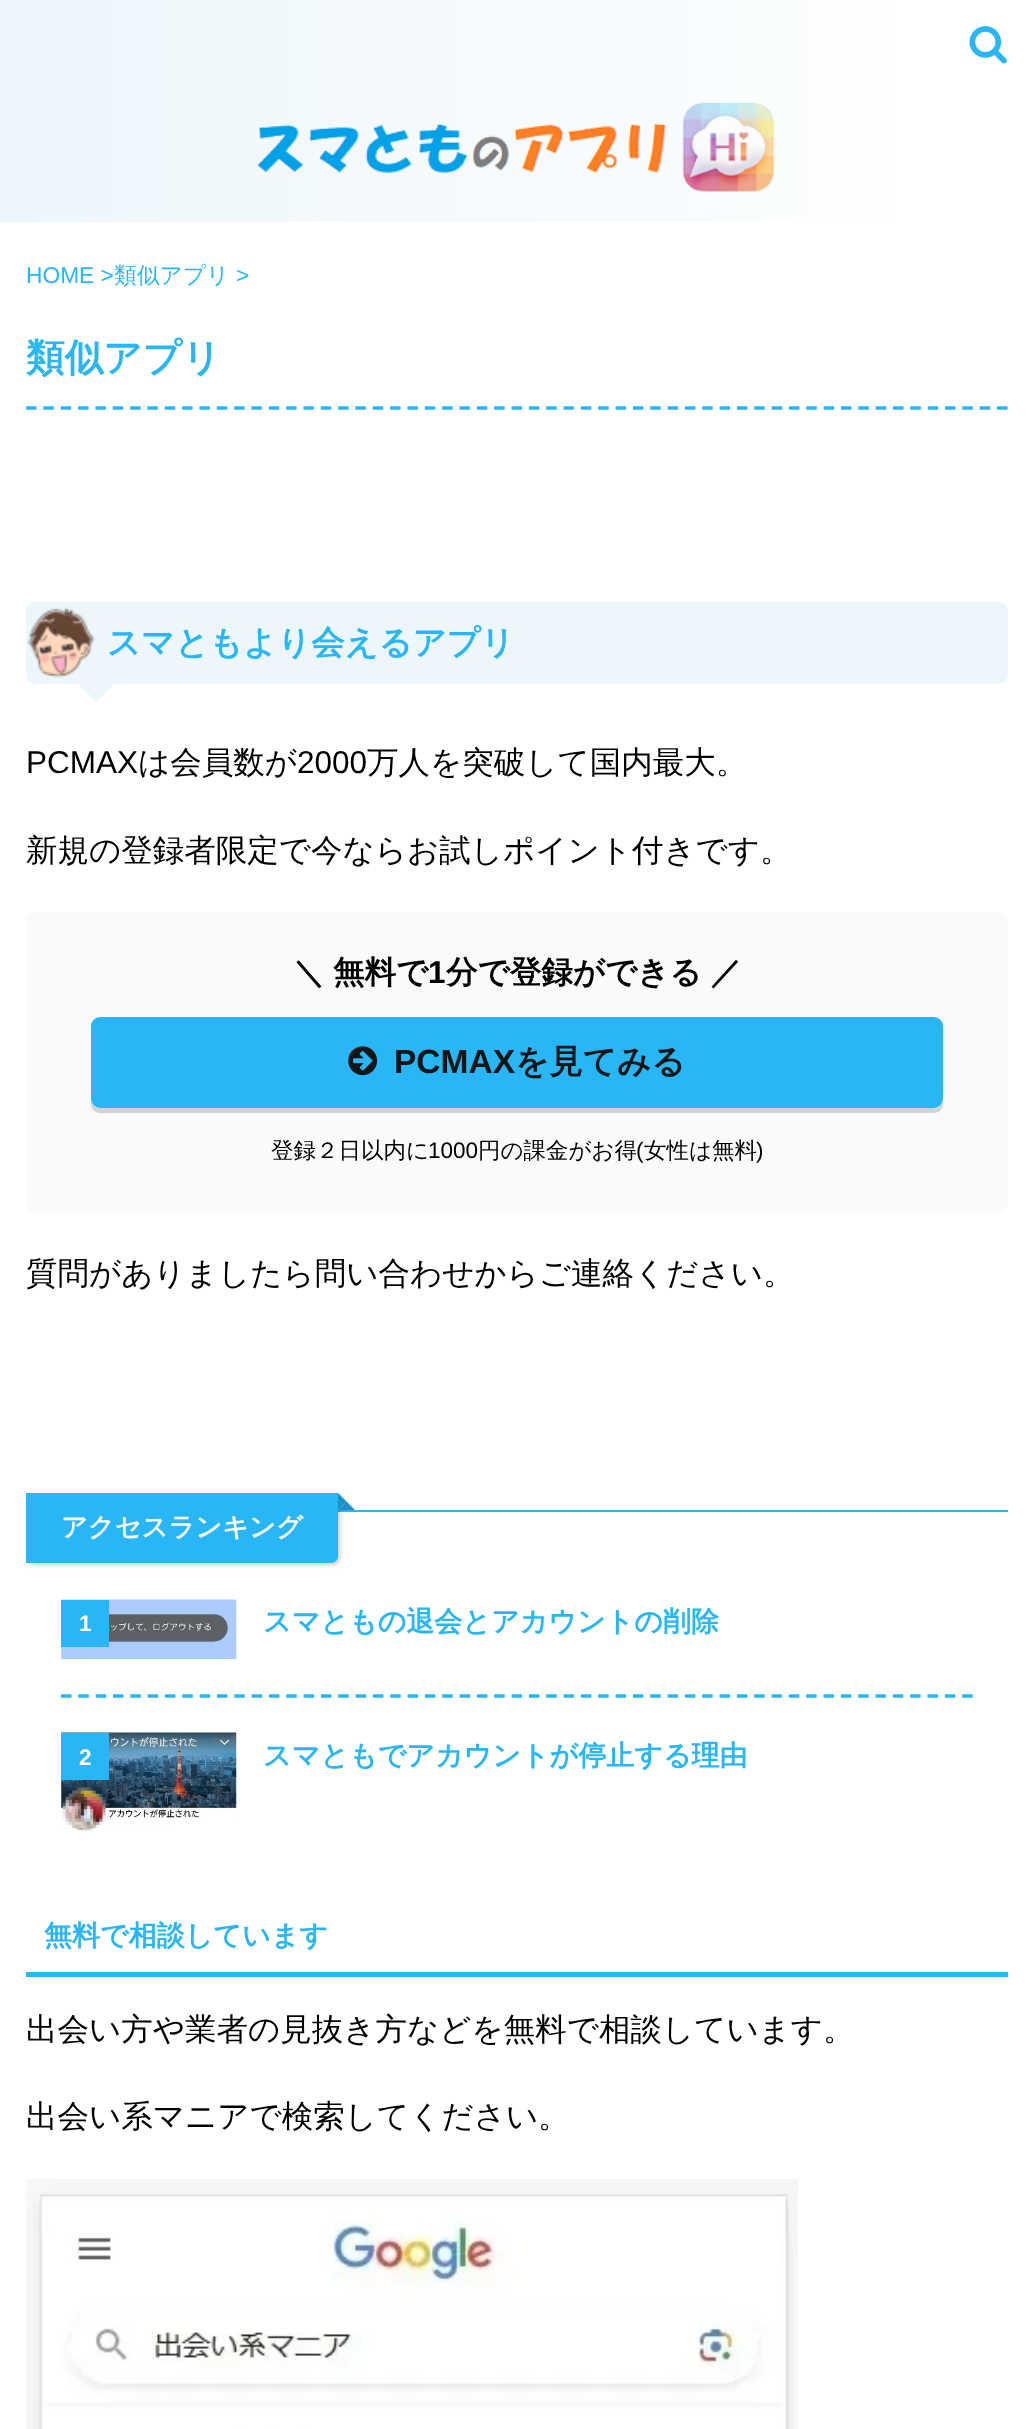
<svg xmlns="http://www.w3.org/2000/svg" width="1034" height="2429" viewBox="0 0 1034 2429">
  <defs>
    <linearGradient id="g1" gradientUnits="userSpaceOnUse" x1="1034" y1="111" x2="0" y2="111"><stop offset="0" stop-color="#fff"/><stop offset="1" stop-color="#edf6fb"/></linearGradient>
  </defs>
  <rect width="100%" height="100%" fill="#fff"/>
  <path d="M0 0h890v222H0z" fill="url(#g1)"/>
  <image x="969" y="26" width="38" height="38" href="img/1.png"/>
  <image x="256" y="102" width="519" height="90" href="img/2.png"/>
  <path d="M26 408H1008" fill="none" stroke="#29b6f6" stroke-width="3.5" stroke-dasharray="10.5 6.84"/>
  <rect x="26" y="602" width="982" height="82" rx="9" fill="#edf6fb"/>
  <image x="27" y="607" width="68" height="71" href="img/3.png"/>
  <path d="M79 684H114L96 702Z" fill="#edf6fb"/>
  <path d="M80 685.5L81 684H111.5L113 685L105 693H87.5Z" fill="#edf6fb"/>
  <rect x="26" y="912" width="982" height="301" rx="9" fill="#fafafa"/>
  <path d="M91 1099V1104C91 1109 95 1113 100 1113H934C939 1113 943 1109 943 1104V1101C942 1105 939 1108 934 1108H100C95 1108 91 1104 91 1099Z" fill="#d3d3d3"/>
  <rect x="92" y="1018" width="850" height="89" rx="8" fill="#29b6f6" stroke="#29b6f6" stroke-width="2"/>
  <image x="348" y="1046" width="30" height="30" href="img/4.png"/>
  <path d="M338 1510h670v2H338z" fill="#29b6f6"/>
  <rect x="28" y="1495" width="312" height="70" rx="7" fill="#00000033" filter="blur(2px)"/>
  <path d="M26 1493H338V1556C338 1560 335 1563 331 1563H26Z" fill="#29b6f6"/>
  <path d="M355 1510H338L346.5 1501.5Z" fill="#29b6f6"/>
  <path d="M338 1510V1493L346.5 1501.5Z" fill="#29b6f6"/>
  <path d="M355 1510H338L346.5 1501.5Z" fill="#00000033"/>
  <path d="M338 1510V1493L346.5 1501.5Z" fill="#00000033"/>
  <path d="M61 1696H973" fill="none" stroke="#29b6f6" stroke-width="3.5" stroke-dasharray="10.5 6.83"/>
  <image x="61" y="1599" width="176" height="60" href="img/5.png"/>
  <path d="M61 1600h48v47H61z" fill="#29b6f6"/>
  <image x="61" y="1732" width="176" height="99" href="img/6.png"/>
  <path d="M61 1733h48v47H61z" fill="#29b6f6"/>
  <path d="M26 1972h982v5H26z" fill="#29b6f6"/>
  <image x="26" y="2179" width="772" height="250" href="img/7.png"/>
  <text x="26" y="283" font-family="Liberation Sans" font-size="22.75" fill="#29b6f6">HOME &gt;</text>
  <text x="114" y="283" font-family="WenQuanYi Zen Hei" font-size="22.75" font-weight="500" fill="#29b6f6">類似アプリ</text>
  <text x="236" y="283" font-family="Liberation Sans" font-size="22.75" fill="#29b6f6">&gt;</text>
  <text x="26" y="371" font-family="WenQuanYi Zen Hei" font-size="38.5" font-weight="bold" fill="#29b6f6">類似アプリ</text>
  <text x="107" y="654" font-family="WenQuanYi Zen Hei" font-size="33.25" font-weight="bold" fill="#29b6f6">スマともより会えるアプリ</text>
  <text x="26" y="773" font-family="Liberation Sans" font-size="31.5" fill="#000">PCMAX</text>
  <text x="138" y="773" font-family="WenQuanYi Zen Hei" font-size="31.5" font-weight="500" fill="#000">は会員数が</text>
  <text x="297" y="773" font-family="Liberation Sans" font-size="31.5" fill="#000">2000</text>
  <g font-family="WenQuanYi Zen Hei" font-size="31.5" font-weight="500" fill="#000">
    <text x="367" y="773">万人を突破して国内最大。</text>
    <text x="26" y="861">新規の登録者限定で今ならお試しポイント付きです。</text>
  </g>
  <text x="293" y="983" word-spacing="-1" font-family="WenQuanYi Zen Hei" font-size="31.5" font-weight="bold" fill="#000">＼ 無料で</text>
  <text x="428" y="983" font-family="Liberation Sans" font-size="31.5" font-weight="bold" fill="#000">1</text>
  <text x="446" y="983" word-spacing="-1" font-family="WenQuanYi Zen Hei" font-size="31.5" font-weight="bold" fill="#000">分で登録ができる ／</text>
  <text x="394" y="1073" font-family="Liberation Sans" font-size="33.5" font-weight="bold" fill="#151513">PCMAX</text>
  <text x="515" y="1073" font-family="WenQuanYi Zen Hei" font-size="33.5" font-weight="bold" fill="#151513">を見てみる</text>
  <text x="271" y="1158" font-family="WenQuanYi Zen Hei" font-size="22.5" font-weight="500" fill="#000">登録２日以内に</text>
  <text x="428" y="1158" font-family="Liberation Sans" font-size="22.5" fill="#000">1000</text>
  <text x="478" y="1158" font-family="WenQuanYi Zen Hei" font-size="22.5" font-weight="500" fill="#000">円の課金がお得</text>
  <text x="636" y="1158" font-family="Liberation Sans" font-size="22.5" fill="#000">(</text>
  <text x="644" y="1158" font-family="WenQuanYi Zen Hei" font-size="22.5" font-weight="500" fill="#000">女性は無料</text>
  <text x="756" y="1158" font-family="Liberation Sans" font-size="22.5" fill="#000">)</text>
  <text x="26" y="1284" font-family="WenQuanYi Zen Hei" font-size="31.5" font-weight="500" fill="#000">質問がありましたら問い合わせからご連絡ください。</text>
  <text x="61" y="1536" font-family="WenQuanYi Zen Hei" font-size="26.25" font-weight="bold" fill="#fff">アクセスランキング</text>
  <text x="79" y="1631" font-family="Liberation Sans" font-size="22.5" font-weight="bold" fill="#fff">1</text>
  <text x="263" y="1631" font-family="WenQuanYi Zen Hei" font-size="28" font-weight="bold" fill="#29b6f6">スマともの退会とアカウントの削除</text>
  <text x="79" y="1765" font-family="Liberation Sans" font-size="22.5" font-weight="bold" fill="#fff">2</text>
  <g font-family="WenQuanYi Zen Hei" font-size="28" font-weight="bold" fill="#29b6f6">
    <text x="263" y="1765">スマともでアカウントが停止する理由</text>
    <text x="44" y="1945">無料で相談しています</text>
  </g>
  <g font-family="WenQuanYi Zen Hei" font-size="31.5" font-weight="500" fill="#000">
    <text x="26" y="2040">出会い方や業者の見抜き方などを無料で相談しています。</text>
    <text x="26" y="2127">出会い系マニアで検索してください。</text>
  </g>
</svg>
